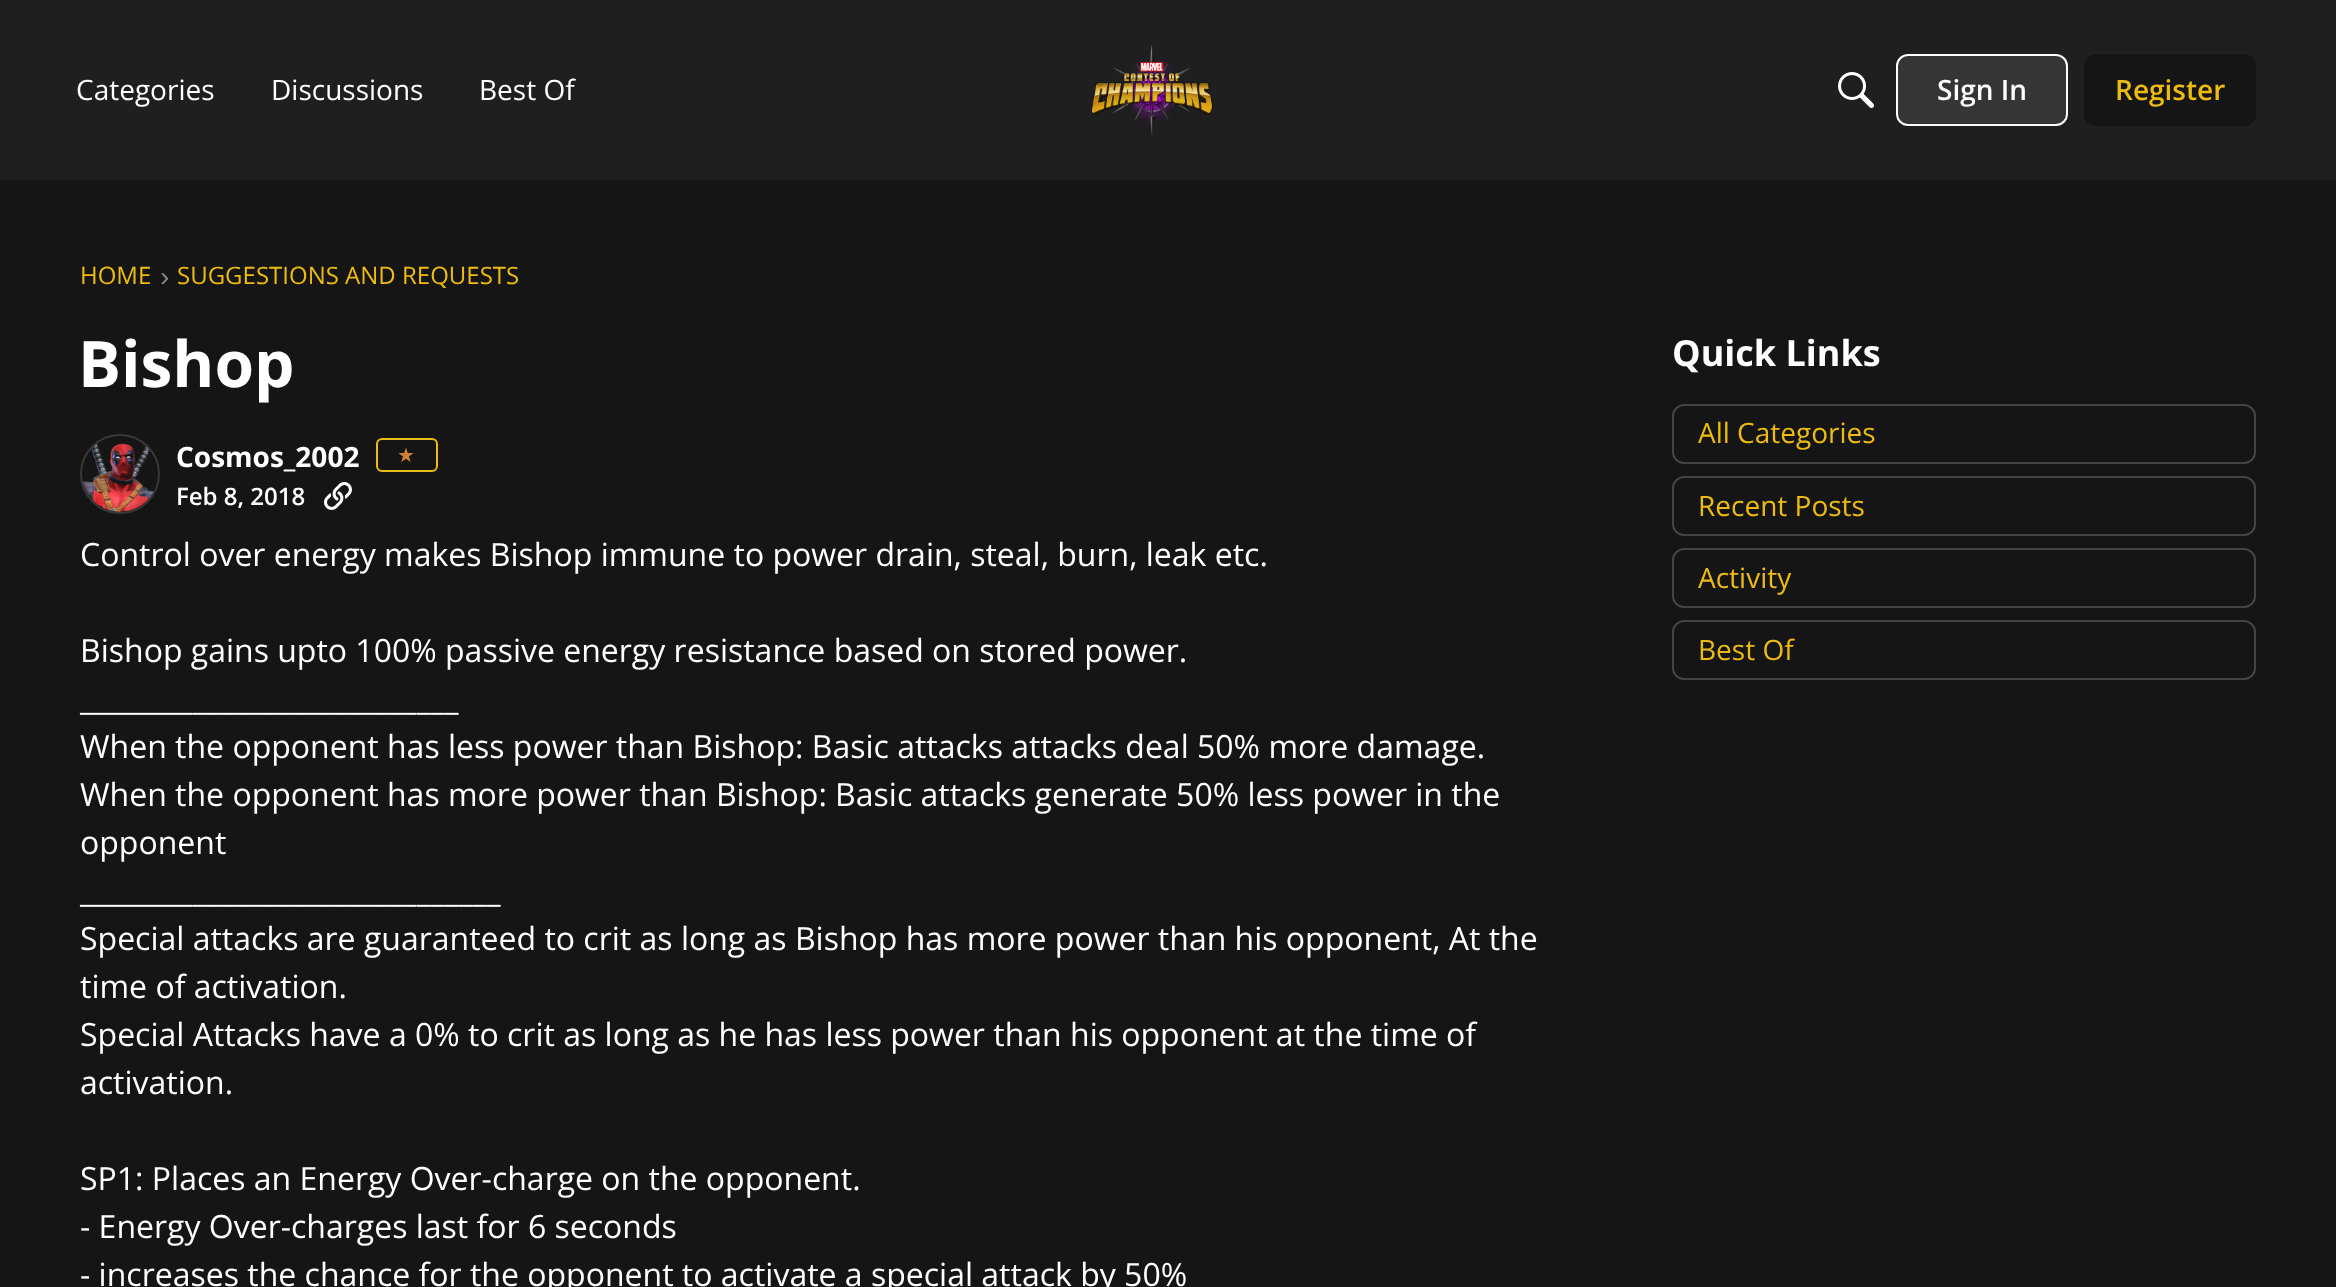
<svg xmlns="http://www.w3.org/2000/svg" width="2336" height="1287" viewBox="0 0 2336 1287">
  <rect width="100%" height="100%" fill="#151515"/>
  <path d="M0 0h2336v180H0z" fill="#1f1f1f"/>
  <image x="1091" y="45" width="122" height="90" href="img/1.png"/>
  <image x="1838" y="72" width="36" height="36" href="img/2.png"/>
  <rect x="1897" y="55" width="170" height="70" rx="11" fill="#353535" stroke="#fff" stroke-width="2"/>
  <rect x="2084" y="54" width="172" height="72" rx="12" fill="#151515"/>
  <circle cx="120" cy="474" r="39" fill="none" stroke="#383838" stroke-width="2"/>
  <image x="83" y="443" width="71" height="69" href="img/3.png"/>
  <rect x="377" y="439" width="60" height="32" rx="5" fill="none" stroke="#eebc11" stroke-width="2"/>
  <image x="324" y="482" width="28" height="28" href="img/4.png"/>
  <rect x="1673" y="405" width="582" height="58" rx="11" fill="none" stroke="#444" stroke-width="2"/>
  <rect x="1673" y="477" width="582" height="58" rx="11" fill="none" stroke="#444" stroke-width="2"/>
  <rect x="1673" y="549" width="582" height="58" rx="11" fill="none" stroke="#444" stroke-width="2"/>
  <rect x="1673" y="621" width="582" height="58" rx="11" fill="none" stroke="#444" stroke-width="2"/>
  <g font-family="Open Sans" font-size="28" fill="#fff">
    <text x="76" y="100">Categories</text>
    <text x="271" y="100">Discussions</text>
    <text x="479" y="100">Best Of</text>
  </g>
  <text x="1937" y="100" font-family="Open Sans" font-size="28" font-weight="600" fill="#fff">Sign In</text>
  <text x="2115" y="100" font-family="Open Sans" font-size="28" font-weight="600" fill="#eebc11">Register</text>
  <text x="80" y="284" font-family="Open Sans" font-size="24" fill="#eebc11">HOME</text>
  <text x="160" y="286" font-family="Liberation Sans" font-size="28" fill="#8a8a8a">›</text>
  <text x="177" y="284" font-family="Open Sans" font-size="24" fill="#eebc11">SUGGESTIONS AND REQUESTS</text>
  <text x="78" y="387" font-family="Open Sans" font-size="64" font-weight="bold" fill="#fff">Bishop</text>
  <text x="176" y="467" font-family="Open Sans" font-size="28" font-weight="bold" fill="#fff">Cosmos_2002</text>
  <text x="397" y="462" font-family="DejaVu Sans" font-size="20" fill="#cd7f32">★</text>
  <text x="176" y="505" font-family="Open Sans" font-size="24" font-weight="600" fill="#fff">Feb 8, 2018</text>
  <g font-family="Open Sans" font-size="32" fill="#fff">
    <text x="80" y="566">Control over energy makes Bishop immune to power drain, steal, burn, leak etc.</text>
    <text x="80" y="662">Bishop gains upto 100% passive energy resistance based on stored power.</text>
    <text x="80" y="710">___________________________</text>
    <text x="80" y="758">When the opponent has less power than Bishop: Basic attacks attacks deal 50% more damage.</text>
    <text x="80" y="806">When the opponent has more power than Bishop: Basic attacks generate 50% less power in the</text>
    <text x="80" y="854">opponent</text>
    <text x="80" y="902">______________________________</text>
    <text x="80" y="950">Special attacks are guaranteed to crit as long as Bishop has more power than his opponent, At the</text>
    <text x="80" y="998">time of activation.</text>
    <text x="80" y="1046">Special Attacks have a 0% to crit as long as he has less power than his opponent at the time of</text>
    <text x="80" y="1094">activation.</text>
    <text x="80" y="1190">SP1: Places an Energy Over-charge on the opponent.</text>
    <text x="80" y="1238">- Energy Over-charges last for 6 seconds</text>
    <text x="80" y="1286">- increases the chance for the opponent to activate a special attack by 50%</text>
  </g>
  <text x="1672" y="366" font-family="Open Sans" font-size="36" font-weight="bold" fill="#fff">Quick Links</text>
  <g font-family="Open Sans" font-size="28" fill="#eebc11">
    <text x="1698" y="443">All Categories</text>
    <text x="1698" y="516">Recent Posts</text>
    <text x="1698" y="588">Activity</text>
    <text x="1698" y="660">Best Of</text>
  </g>
</svg>
